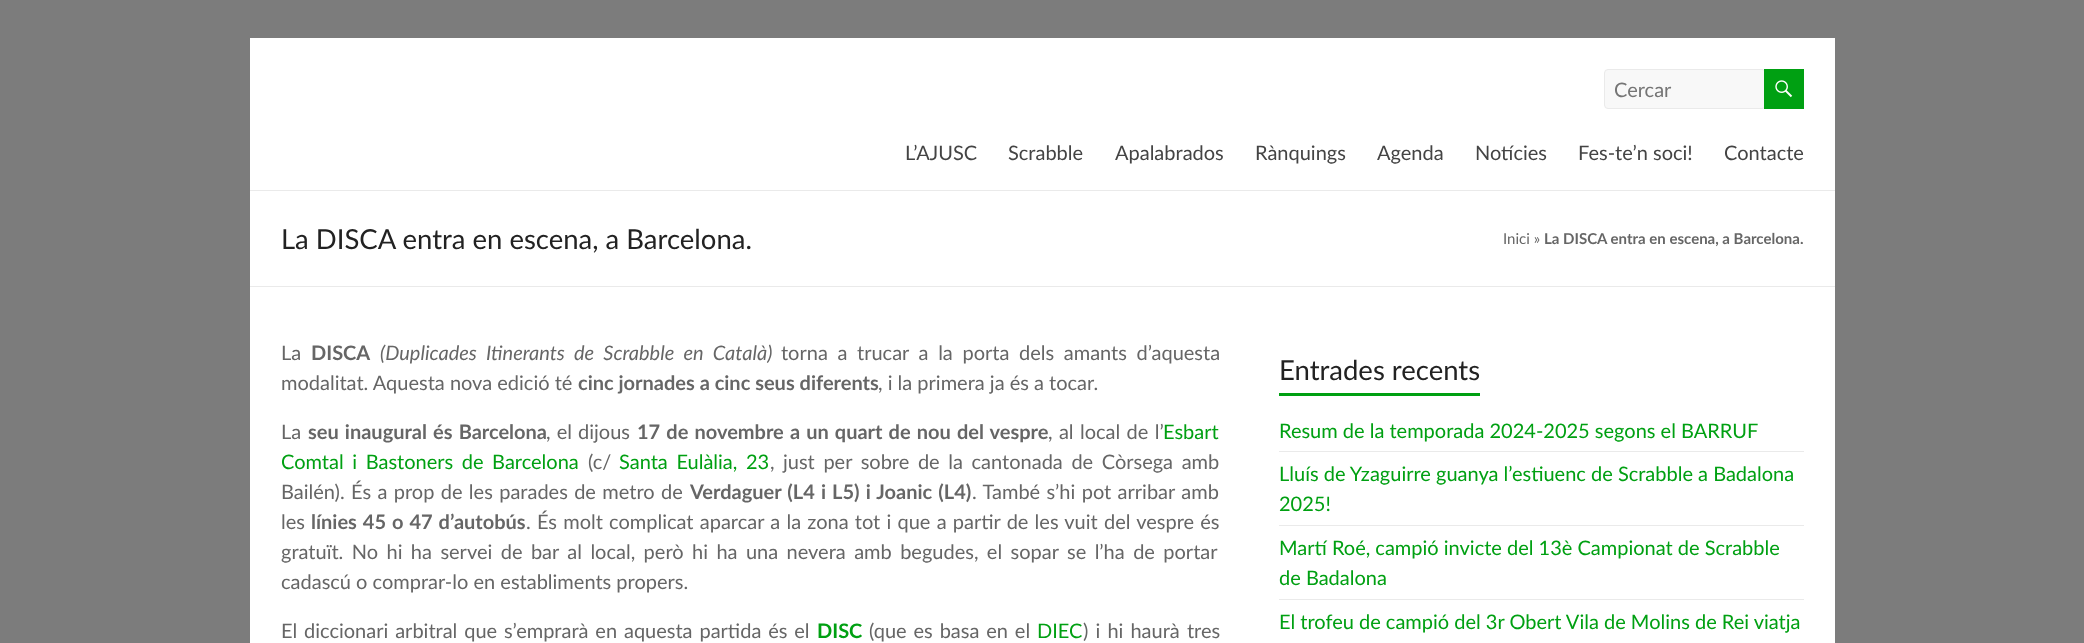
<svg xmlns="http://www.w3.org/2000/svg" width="2084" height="643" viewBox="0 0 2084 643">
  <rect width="100%" height="100%" fill="#7c7c7c"/>
  <path d="M250 38h1585v605H250z" fill="#fff"/>
  <path d="M250 190h1585v1H250z" fill="#eaeaea"/>
  <rect x="1604.5" y="69.5" width="161" height="39" rx="3.5" fill="#f8f8f8" stroke="#eaeaea"/>
  <path d="M1764 69h40v40H1764z" fill="#00a012"/>
  <image x="1775" y="80" width="18" height="18" href="img/1.png"/>
  <path d="M250 286h1585v1H250z" fill="#eaeaea"/>
  <path d="M1279 393h201v3H1279z" fill="#00a012"/>
  <path d="M1279 451h525v1H1279z" fill="#eaeaea"/>
  <path d="M1279 525h525v1H1279z" fill="#eaeaea"/>
  <path d="M1279 599h525v1H1279z" fill="#eaeaea"/>
  <text x="1614" y="97" font-family="Lato" font-size="20" fill="#757575">Cercar</text>
  <g font-family="Lato" font-size="20" fill="#444">
    <text x="905" y="160">L’AJUSC</text>
    <text x="1008" y="160">Scrabble</text>
    <text x="1115" y="160">Apalabrados</text>
    <text x="1255" y="160">Rànquings</text>
    <text x="1377" y="160">Agenda</text>
    <text x="1475" y="160">Notícies</text>
    <text x="1578" y="160">Fes-te’n soci!</text>
    <text x="1724" y="160">Contacte</text>
  </g>
  <text x="281" y="249" font-family="Lato" font-size="27.5" fill="#222">La DISCA entra en escena, a Barcelona.</text>
  <text x="1503" y="244" font-family="Lato" font-size="15" fill="#666">Inici »</text>
  <text x="1544" y="244" font-family="Lato" font-size="15" font-weight="bold" fill="#666">La DISCA entra en escena, a Barcelona.</text>
  <text x="281" y="360" font-family="Lato" font-size="20" fill="#666">La</text>
  <text x="311" y="360" font-family="Lato" font-size="20" font-weight="bold" fill="#666">DISCA</text>
  <text x="380" y="360" word-spacing="4.5" font-family="Lato" font-size="20" font-style="italic" fill="#666">(Duplicades Itinerants de Scrabble en Català)</text>
  <g font-family="Lato" font-size="20" fill="#666">
    <text x="781" y="360" word-spacing="4.5">torna a trucar a la porta dels amants d’aquesta</text>
    <text x="281" y="390">modalitat. Aquesta nova edició té</text>
  </g>
  <text x="578" y="390" font-family="Lato" font-size="20" font-weight="bold" fill="#666">cinc jornades a cinc seus diferents</text>
  <g font-family="Lato" font-size="20" fill="#666">
    <text x="878" y="390">, i la primera ja és a tocar.</text>
    <text x="281" y="439">La</text>
  </g>
  <text x="308" y="439" word-spacing="1.25" font-family="Lato" font-size="20" font-weight="bold" fill="#666">seu inaugural és Barcelona</text>
  <text x="546" y="439" word-spacing="1" font-family="Lato" font-size="20" fill="#666">, el dijous</text>
  <text x="637" y="439" word-spacing="1.25" font-family="Lato" font-size="20" font-weight="bold" fill="#666">17 de novembre a un quart de nou del vespre</text>
  <text x="1048" y="439" word-spacing="1.25" font-family="Lato" font-size="20" fill="#666">, al local de l’</text>
  <g font-family="Lato" font-size="20" fill="#00a012">
    <text x="1163" y="439">Esbart</text>
    <text x="281" y="469" word-spacing="3.5">Comtal i Bastoners de Barcelona</text>
  </g>
  <text x="588" y="469" font-family="Lato" font-size="20" fill="#666">(c/</text>
  <text x="619" y="469" word-spacing="3.5" font-family="Lato" font-size="20" fill="#00a012">Santa Eulàlia, 23</text>
  <g font-family="Lato" font-size="20" fill="#666">
    <text x="770" y="469">,</text>
    <text x="783" y="469" word-spacing="3.5">just per sobre de la cantonada de Còrsega amb</text>
    <text x="281" y="499">Bailén).</text>
    <text x="351" y="499" word-spacing="1.25">És a prop de les parades de metro de</text>
  </g>
  <text x="690" y="499" word-spacing="1.25" font-family="Lato" font-size="20" font-weight="bold" fill="#666">Verdaguer (L4 i L5) i Joanic (L4)</text>
  <g font-family="Lato" font-size="20" fill="#666">
    <text x="972" y="499" word-spacing="1.25">. També s’hi pot arribar amb</text>
    <text x="281" y="529">les</text>
  </g>
  <text x="311" y="529" word-spacing="1.1" font-family="Lato" font-size="20" font-weight="bold" fill="#666">línies 45 o 47 d’autobús</text>
  <g font-family="Lato" font-size="20" fill="#666">
    <text x="526" y="529" word-spacing="1.1">. És molt complicat aparcar a la zona tot i que a partir de les vuit del vespre és</text>
    <text x="281" y="559" word-spacing="3.3">gratuït. No hi ha servei de bar al local, però hi ha una nevera amb begudes, el sopar se l’ha de portar</text>
    <text x="281" y="589">cadascú o comprar-lo en establiments propers.</text>
    <text x="281" y="638" word-spacing="1.75">El diccionari arbitral que s’emprarà en aquesta partida és el</text>
  </g>
  <text x="817" y="638" font-family="Lato" font-size="20" font-weight="bold" fill="#00a012">DISC</text>
  <text x="869" y="638" word-spacing="1.75" font-family="Lato" font-size="20" fill="#666">(que es basa en el</text>
  <text x="1037" y="638" font-family="Lato" font-size="20" fill="#00a012">DIEC</text>
  <text x="1083" y="638" word-spacing="2" font-family="Lato" font-size="20" fill="#666">) i hi haurà tres</text>
  <text x="1279" y="380" font-family="Lato" font-size="27.5" fill="#222">Entrades recents</text>
  <g font-family="Lato" font-size="20" fill="#00a012">
    <text x="1279" y="438">Resum de la temporada 2024-2025 segons el BARRUF</text>
    <text x="1279" y="481">Lluís de Yzaguirre guanya l’estiuenc de Scrabble a Badalona</text>
    <text x="1279" y="511">2025!</text>
    <text x="1279" y="555">Martí Roé, campió invicte del 13è Campionat de Scrabble</text>
    <text x="1279" y="585">de Badalona</text>
    <text x="1279" y="629">El trofeu de campió del 3r Obert Vila de Molins de Rei viatja</text>
  </g>
</svg>
